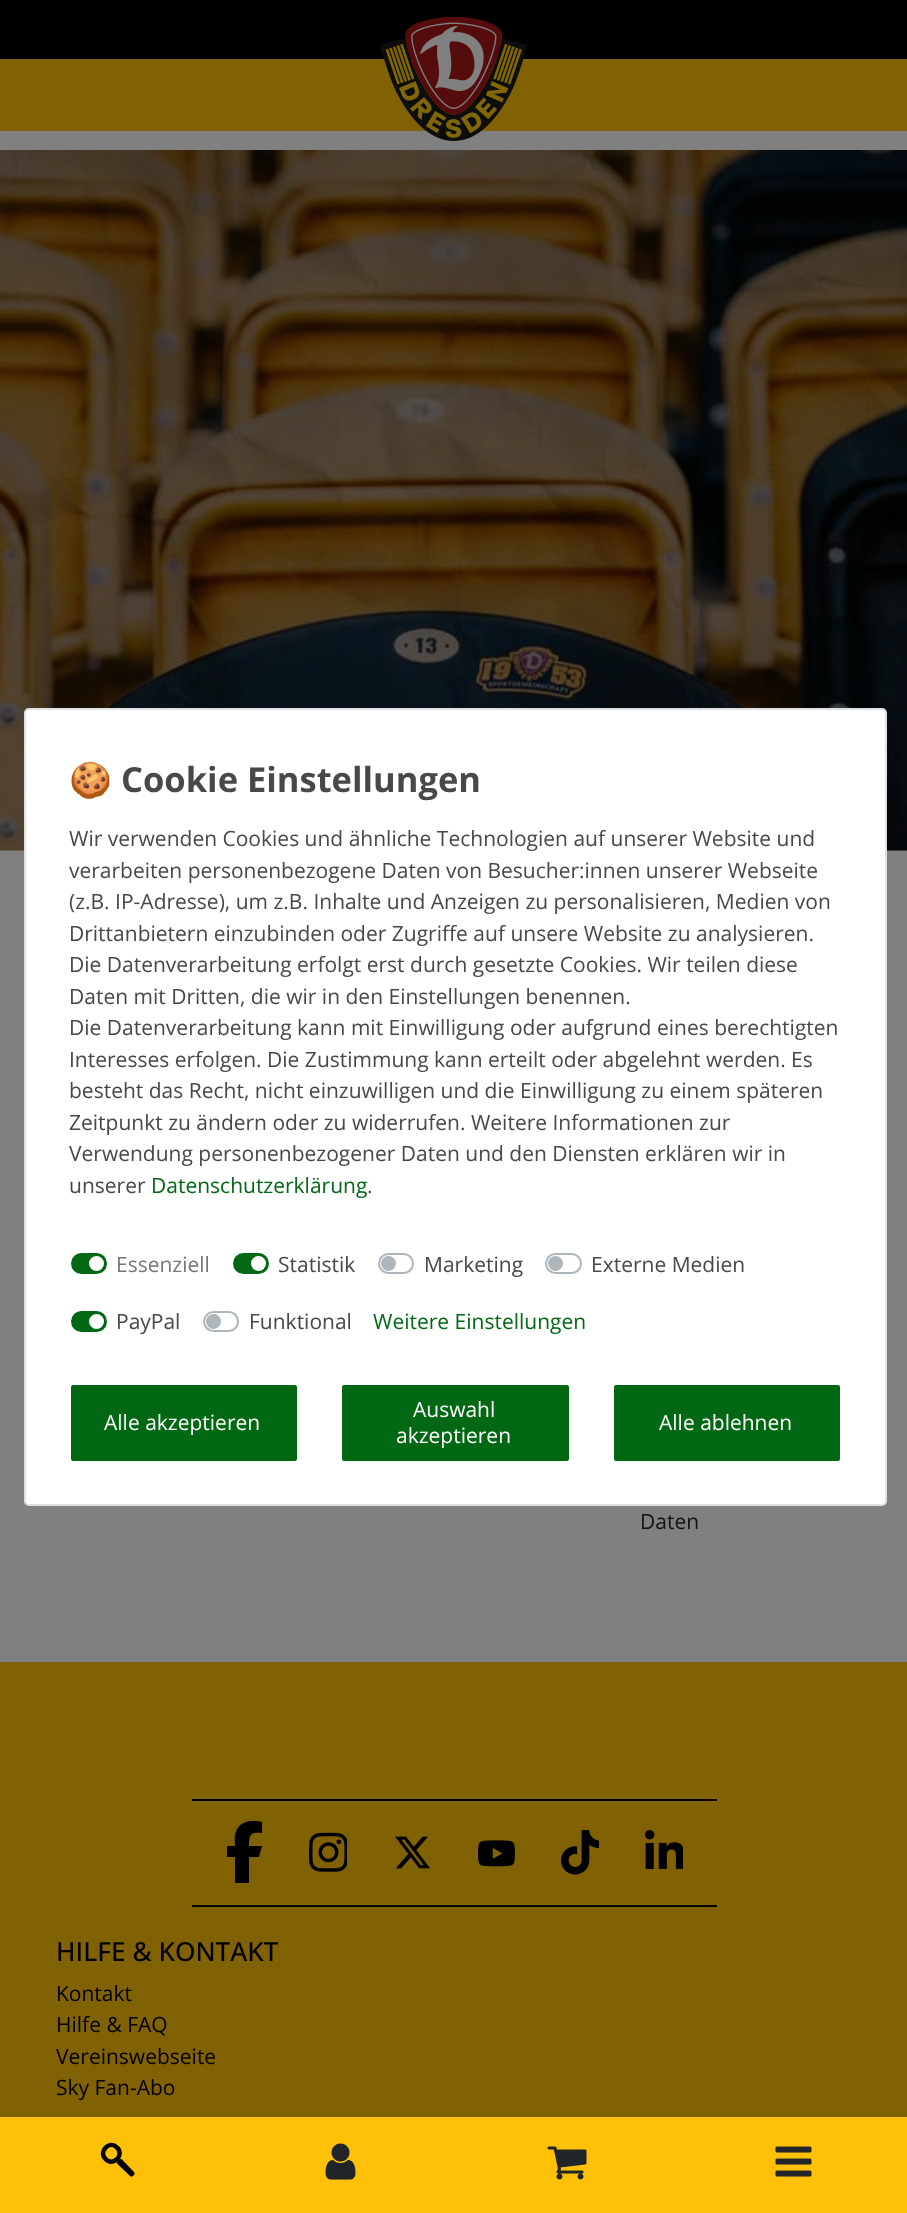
<svg xmlns="http://www.w3.org/2000/svg" width="907" height="2213" viewBox="0 0 907 2213">
  <style>*{font-kerning:none!important;font-variant-ligatures:none!important}</style>
  <defs>
    <clipPath id="clip1"><path d="M225 1821h38v63H225z"/></clipPath>
  </defs>
  <rect width="100%" height="100%" fill="#808080"/>
  <path d="M0 0h907v59H0z" fill="#000"/>
  <path d="M0 59h907v72H0z" fill="#806104"/>
  <image x="380" y="17" width="148" height="124" href="img/1.png"/>
  <path d="M0 850h907v1H0z" fill="#7c7d7d"/>
  <image x="0" y="150" width="907" height="701" href="img/2.png"/>
  <rect x="25" y="709" width="861" height="796" rx="4" fill="#fff" stroke="#dee2e6" stroke-width="2"/>
  <rect x="72" y="1254" width="34" height="19" rx="9.5" fill="#026814" stroke="#026814" stroke-width="2"/>
  <circle cx="96.5" cy="1263.5" r="7.5" fill="#fff"/>
  <rect x="234" y="1254" width="34" height="19" rx="9.5" fill="#026814" stroke="#026814" stroke-width="2"/>
  <circle cx="258.5" cy="1263.5" r="7.5" fill="#fff"/>
  <rect x="379" y="1254" width="34" height="19" rx="9.5" fill="none" stroke="#adb5bd" stroke-width="2"/>
  <circle cx="388.5" cy="1263.5" r="7.5" fill="#adb5bd"/>
  <rect x="546" y="1254" width="35" height="19" rx="9.5" fill="none" stroke="#adb5bd" stroke-width="2"/>
  <circle cx="555.5" cy="1263.5" r="7.5" fill="#adb5bd"/>
  <rect x="72" y="1312" width="34" height="19" rx="9.5" fill="#026814" stroke="#026814" stroke-width="2"/>
  <circle cx="96.5" cy="1321.5" r="7.5" fill="#fff"/>
  <rect x="204" y="1312" width="34" height="19" rx="9.5" fill="none" stroke="#adb5bd" stroke-width="2"/>
  <circle cx="213.5" cy="1321.5" r="7.5" fill="#adb5bd"/>
  <rect x="72" y="1386" width="224" height="74" rx="1" fill="#026814" stroke="#026814" stroke-width="2"/>
  <rect x="343" y="1386" width="225" height="74" rx="1" fill="#026814" stroke="#026814" stroke-width="2"/>
  <rect x="615" y="1386" width="224" height="74" rx="1" fill="#026814" stroke="#026814" stroke-width="2"/>
  <path d="M0 1662h907v455H0z" fill="#806104"/>
  <path d="M192 1799h525v2H192z" fill="#000"/>
  <path d="M192 1905h525v2H192z" fill="#000"/>
  <g clip-path="url(#clip1)">
    <path d="M235 1857V1883H249V1857H259L262 1846H249C249 1834 251 1832 262 1833V1822C253 1819 239 1821 236 1832C234 1836 235 1841 235 1846H227V1857Z" fill="#000"/>
  </g>
  <image x="309" y="1832" width="38" height="40" href="img/3.png"/>
  <image x="395" y="1836" width="35" height="33" href="img/4.png"/>
  <image x="478" y="1840" width="37" height="27" href="img/5.png"/>
  <image x="561" y="1830" width="38" height="45" href="img/6.png"/>
  <image x="645" y="1830" width="38" height="39" href="img/7.png"/>
  <path d="M0 2117h907v96H0z" fill="#ffc107"/>
  <path d="M129.5 2175.5L117.5 2164C116.5 2163 116.5 2161 117.5 2159.5C119 2158.5 121 2158.5 122 2159.5L133.5 2171.5C135 2172.5 135 2174.5 133.5 2175.5C132.5 2177 130.5 2177 129.5 2175.5Z" fill="#000"/>
  <path d="M104 2161C94 2151 109 2136 118.5 2146C128.5 2155.5 113.5 2170.5 104 2161Z" fill="#ffc107"/>
  <path d="M105.5 2159C98 2151.5 109.5 2140 117 2147.5C125 2155 113 2167 105.5 2159Z" fill="none" stroke="#000" stroke-width="4.5"/>
  <image x="325" y="2143" width="31" height="37" href="img/8.png"/>
  <image x="547" y="2146" width="40" height="34" href="img/9.png"/>
  <image x="775" y="2146" width="37" height="31" href="img/10.png"/>
  <text x="69" y="792" font-family="Noto Color Emoji" font-size="34.5" font-weight="bold" fill="#484848">🍪</text>
  <text x="121" y="792" font-family="Open Sans" font-size="34.5" font-weight="bold" fill="#484848">Cookie Einstellungen</text>
  <g font-family="Open Sans" font-size="21" fill="#484848">
    <text x="69" y="846">Wir verwenden Cookies und ähnliche Technologien auf unserer Website und</text>
    <text x="69" y="878">verarbeiten personenbezogene Daten von Besucher:innen unserer Webseite</text>
    <text x="69" y="909">(z.B. IP-Adresse), um z.B. Inhalte und Anzeigen zu personalisieren, Medien von</text>
    <text x="69" y="941">Drittanbietern einzubinden oder Zugriffe auf unsere Website zu analysieren.</text>
    <text x="69" y="972">Die Datenverarbeitung erfolgt erst durch gesetzte Cookies. Wir teilen diese</text>
    <text x="69" y="1004">Daten mit Dritten, die wir in den Einstellungen benennen.</text>
    <text x="69" y="1035">Die Datenverarbeitung kann mit Einwilligung oder aufgrund eines berechtigten</text>
    <text x="69" y="1067">Interesses erfolgen. Die Zustimmung kann erteilt oder abgelehnt werden. Es</text>
    <text x="69" y="1098">besteht das Recht, nicht einzuwilligen und die Einwilligung zu einem späteren</text>
    <text x="69" y="1130">Zeitpunkt zu ändern oder zu widerrufen. Weitere Informationen zur</text>
    <text x="69" y="1161">Verwendung personenbezogener Daten und den Diensten erklären wir in</text>
    <text x="69" y="1193">unserer</text>
  </g>
  <text x="151" y="1193" font-family="Open Sans" font-size="21" fill="#026814">Datenschutzerklärung</text>
  <text x="367" y="1193" font-family="Open Sans" font-size="21" fill="#484848">.</text>
  <text x="116" y="1272" font-family="Open Sans" font-size="21" fill="#767676">Essenziell</text>
  <g font-family="Open Sans" font-size="21" fill="#484848">
    <text x="278" y="1272">Statistik</text>
    <text x="424" y="1272">Marketing</text>
    <text x="591" y="1272">Externe Medien</text>
    <text x="116" y="1329">PayPal</text>
    <text x="249" y="1329">Funktional</text>
  </g>
  <text x="373" y="1329" font-family="Open Sans" font-size="21" fill="#026814">Weitere Einstellungen</text>
  <g font-family="Open Sans" font-size="21" fill="#fff">
    <text x="104" y="1430">Alle akzeptieren</text>
    <text x="413" y="1417">Auswahl</text>
    <text x="396" y="1443">akzeptieren</text>
    <text x="659" y="1430">Alle ablehnen</text>
  </g>
  <text x="640" y="1529" font-family="Open Sans" font-size="21" fill="#111315">Daten</text>
  <text x="56" y="1961" font-family="Open Sans" font-size="26.25" font-weight="500" fill="#000">HILFE &amp; KONTAKT</text>
  <g font-family="Open Sans" font-size="21" fill="#000">
    <text x="56" y="2001">Kontakt</text>
    <text x="56" y="2032">Hilfe &amp; FAQ</text>
    <text x="56" y="2064">Vereinswebseite</text>
    <text x="56" y="2095">Sky Fan-Abo</text>
  </g>
</svg>
